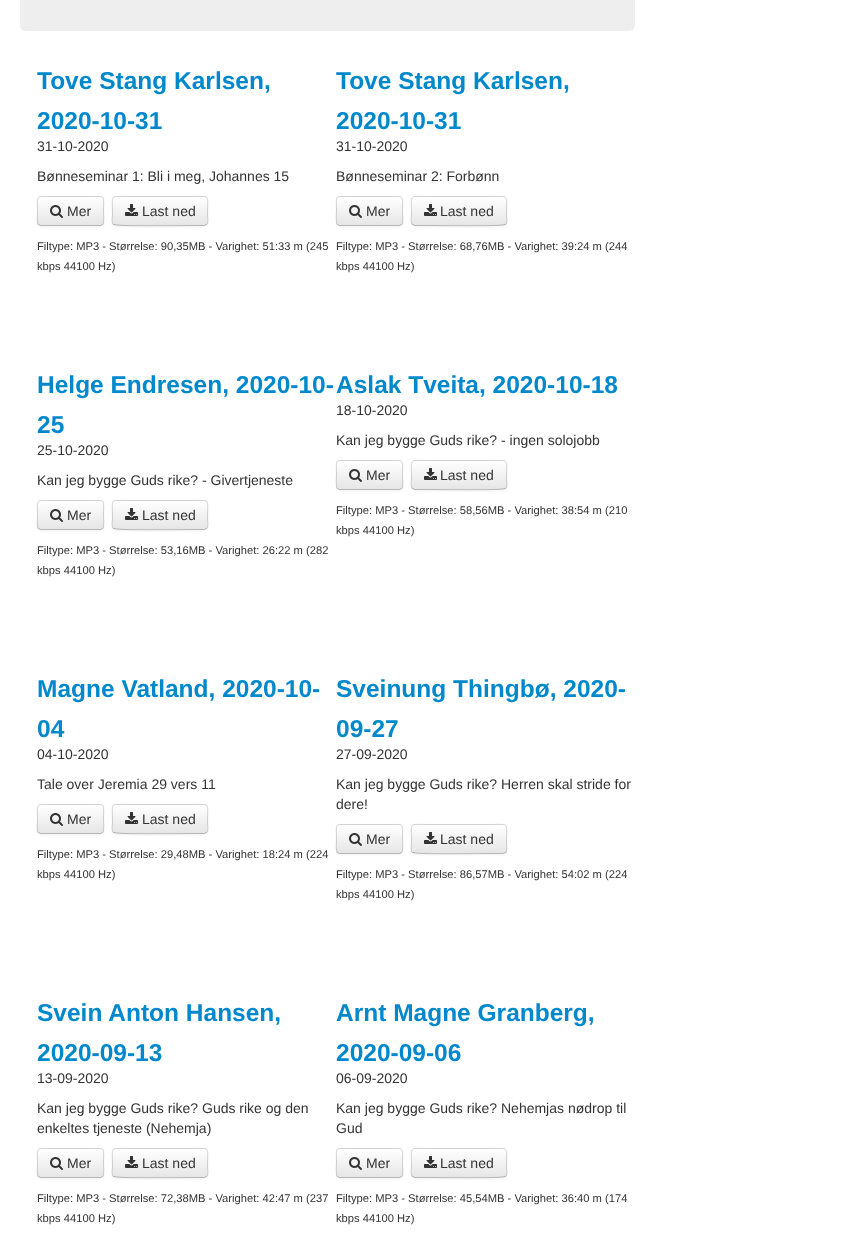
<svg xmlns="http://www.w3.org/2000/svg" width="867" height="1255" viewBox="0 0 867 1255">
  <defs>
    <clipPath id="clip1"><rect x="37" y="196" width="67" height="30" rx="4"/></clipPath>
    <linearGradient id="g1" gradientUnits="userSpaceOnUse" x1="71" y1="197" x2="71" y2="225"><stop offset="0" stop-color="#fff"/><stop offset="1" stop-color="#e6e6e6"/></linearGradient>
    <clipPath id="clip2"><rect x="112" y="196" width="96" height="30" rx="4"/></clipPath>
    <linearGradient id="g2" gradientUnits="userSpaceOnUse" x1="160" y1="197" x2="160" y2="225"><stop offset="0" stop-color="#fff"/><stop offset="1" stop-color="#e6e6e6"/></linearGradient>
    <clipPath id="clip3"><rect x="336" y="196" width="67" height="30" rx="4"/></clipPath>
    <linearGradient id="g3" gradientUnits="userSpaceOnUse" x1="370" y1="197" x2="370" y2="225"><stop offset="0" stop-color="#fff"/><stop offset="1" stop-color="#e6e6e6"/></linearGradient>
    <clipPath id="clip4"><rect x="411" y="196" width="96" height="30" rx="4"/></clipPath>
    <linearGradient id="g4" gradientUnits="userSpaceOnUse" x1="459" y1="197" x2="459" y2="225"><stop offset="0" stop-color="#fff"/><stop offset="1" stop-color="#e6e6e6"/></linearGradient>
    <clipPath id="clip5"><rect x="37" y="500" width="67" height="30" rx="4"/></clipPath>
    <linearGradient id="g5" gradientUnits="userSpaceOnUse" x1="71" y1="501" x2="71" y2="529"><stop offset="0" stop-color="#fff"/><stop offset="1" stop-color="#e6e6e6"/></linearGradient>
    <clipPath id="clip6"><rect x="112" y="500" width="96" height="30" rx="4"/></clipPath>
    <linearGradient id="g6" gradientUnits="userSpaceOnUse" x1="160" y1="501" x2="160" y2="529"><stop offset="0" stop-color="#fff"/><stop offset="1" stop-color="#e6e6e6"/></linearGradient>
    <clipPath id="clip7"><rect x="336" y="460" width="67" height="30" rx="4"/></clipPath>
    <linearGradient id="g7" gradientUnits="userSpaceOnUse" x1="370" y1="461" x2="370" y2="489"><stop offset="0" stop-color="#fff"/><stop offset="1" stop-color="#e6e6e6"/></linearGradient>
    <clipPath id="clip8"><rect x="411" y="460" width="96" height="30" rx="4"/></clipPath>
    <linearGradient id="g8" gradientUnits="userSpaceOnUse" x1="459" y1="461" x2="459" y2="489"><stop offset="0" stop-color="#fff"/><stop offset="1" stop-color="#e6e6e6"/></linearGradient>
    <clipPath id="clip9"><rect x="37" y="804" width="67" height="30" rx="4"/></clipPath>
    <linearGradient id="g9" gradientUnits="userSpaceOnUse" x1="71" y1="805" x2="71" y2="833"><stop offset="0" stop-color="#fff"/><stop offset="1" stop-color="#e6e6e6"/></linearGradient>
    <clipPath id="clip10"><rect x="112" y="804" width="96" height="30" rx="4"/></clipPath>
    <linearGradient id="g10" gradientUnits="userSpaceOnUse" x1="160" y1="805" x2="160" y2="833"><stop offset="0" stop-color="#fff"/><stop offset="1" stop-color="#e6e6e6"/></linearGradient>
    <clipPath id="clip11"><rect x="336" y="824" width="67" height="30" rx="4"/></clipPath>
    <linearGradient id="g11" gradientUnits="userSpaceOnUse" x1="370" y1="825" x2="370" y2="853"><stop offset="0" stop-color="#fff"/><stop offset="1" stop-color="#e6e6e6"/></linearGradient>
    <clipPath id="clip12"><rect x="411" y="824" width="96" height="30" rx="4"/></clipPath>
    <linearGradient id="g12" gradientUnits="userSpaceOnUse" x1="459" y1="825" x2="459" y2="853"><stop offset="0" stop-color="#fff"/><stop offset="1" stop-color="#e6e6e6"/></linearGradient>
    <clipPath id="clip13"><rect x="37" y="1148" width="67" height="30" rx="4"/></clipPath>
    <linearGradient id="g13" gradientUnits="userSpaceOnUse" x1="71" y1="1149" x2="71" y2="1177"><stop offset="0" stop-color="#fff"/><stop offset="1" stop-color="#e6e6e6"/></linearGradient>
    <clipPath id="clip14"><rect x="112" y="1148" width="96" height="30" rx="4"/></clipPath>
    <linearGradient id="g14" gradientUnits="userSpaceOnUse" x1="160" y1="1149" x2="160" y2="1177"><stop offset="0" stop-color="#fff"/><stop offset="1" stop-color="#e6e6e6"/></linearGradient>
    <clipPath id="clip15"><rect x="336" y="1148" width="67" height="30" rx="4"/></clipPath>
    <linearGradient id="g15" gradientUnits="userSpaceOnUse" x1="370" y1="1149" x2="370" y2="1177"><stop offset="0" stop-color="#fff"/><stop offset="1" stop-color="#e6e6e6"/></linearGradient>
    <clipPath id="clip16"><rect x="411" y="1148" width="96" height="30" rx="4"/></clipPath>
    <linearGradient id="g16" gradientUnits="userSpaceOnUse" x1="459" y1="1149" x2="459" y2="1177"><stop offset="0" stop-color="#fff"/><stop offset="1" stop-color="#e6e6e6"/></linearGradient>
  </defs>
  <rect width="100%" height="100%" fill="#fff"/>
  <rect x="20" y="-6" width="615" height="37" rx="6" fill="#eee"/>
  <rect x="37" y="197" width="67" height="30" rx="4" fill="#0000000d" filter="blur(1px)"/>
  <rect x="37" y="196" width="67" height="30" rx="4" fill="#f5f5f5"/>
  <g clip-path="url(#clip1)">
    <path d="M37 197h67v28H37z" fill="url(#g1)"/>
  </g>
  <path d="M41 198H100C102 198 103 199 103 201C103 195 95 197 90 197H51C46 197 38 195 38 201C38 199 39 198 41 198Z" fill="#fff"/>
  <path d="M102.5 224.5L100.5 225.5H40.5L38.5 224.5" fill="none" stroke="#00000040"/>
  <path d="M38.5 224.5C36.5 222.5 37.5 214 37.5 211C37.5 195 35 196.5 51 196.5H90C106 196.5 103.5 195 103.5 211C103.5 214 104.5 222.5 102.5 224.5" fill="none" stroke="#00000026"/>
  <image x="50" y="205" width="13" height="13" href="img/1.png"/>
  <rect x="112" y="197" width="96" height="30" rx="4" fill="#0000000d" filter="blur(1px)"/>
  <rect x="112" y="196" width="96" height="30" rx="4" fill="#f5f5f5"/>
  <g clip-path="url(#clip2)">
    <path d="M112 197h96v28H112z" fill="url(#g2)"/>
  </g>
  <path d="M206.5 224.5L204 225.5H189.5C181 225.5 116 226.5 114 224.5H113.5" fill="none" stroke="#00000040"/>
  <path d="M113.5 224.5C111 222 112.5 217.5 112.5 214.5C112.5 193.5 109 196.5 130.5 196.5H189.5C211 196.5 207.5 193.5 207.5 214.5C207.5 217.5 209 222 206.5 224.5" fill="none" stroke="#00000026"/>
  <image x="125" y="204" width="13" height="12" href="img/2.png"/>
  <rect x="336" y="197" width="67" height="30" rx="4" fill="#0000000d" filter="blur(1px)"/>
  <rect x="336" y="196" width="67" height="30" rx="4" fill="#f5f5f5"/>
  <g clip-path="url(#clip3)">
    <path d="M336 197h67v28H336z" fill="url(#g3)"/>
  </g>
  <path d="M340 198H399C401 198 402 199 402 201C402 195 394 197 389 197H350C345 197 337 195 337 201C337 199 338 198 340 198Z" fill="#fff"/>
  <path d="M401.5 224.5L399.5 225.5H339.5L337.5 224.5" fill="none" stroke="#00000040"/>
  <path d="M337.5 224.5C335.5 222.5 336.5 214 336.5 211C336.5 195 334 196.5 350 196.5H389C405 196.5 402.5 195 402.5 211C402.5 214 403.5 222.5 401.5 224.5" fill="none" stroke="#00000026"/>
  <image x="349" y="205" width="13" height="13" href="img/1.png"/>
  <rect x="411" y="197" width="96" height="30" rx="4" fill="#0000000d" filter="blur(1px)"/>
  <rect x="411" y="196" width="96" height="30" rx="4" fill="#f5f5f5"/>
  <g clip-path="url(#clip4)">
    <path d="M411 197h96v28H411z" fill="url(#g4)"/>
  </g>
  <path d="M505.5 224.5H505C503 226.5 438 225.5 429.5 225.5H415L412.5 224.5" fill="none" stroke="#00000040"/>
  <path d="M412.5 224.5C410 222 411.5 217.5 411.5 214.5C411.5 193.5 408 196.5 429.5 196.5H488.5C510 196.5 506.5 193.5 506.5 214.5C506.5 217.5 508 222 505.5 224.5" fill="none" stroke="#00000026"/>
  <image x="424" y="204" width="13" height="12" href="img/2.png"/>
  <rect x="37" y="501" width="67" height="30" rx="4" fill="#0000000d" filter="blur(1px)"/>
  <rect x="37" y="500" width="67" height="30" rx="4" fill="#f5f5f5"/>
  <g clip-path="url(#clip5)">
    <path d="M37 501h67v28H37z" fill="url(#g5)"/>
  </g>
  <path d="M41 502H100C102 502 103 503 103 505C103 499 95 501 90 501H51C46 501 38 499 38 505C38 503 39 502 41 502Z" fill="#fff"/>
  <path d="M102.5 528.5L100.5 529.5H40.5L38.5 528.5" fill="none" stroke="#00000040"/>
  <path d="M38.5 528.5C36.5 526.5 37.5 518 37.5 515C37.5 499 35 500.5 51 500.5H90C106 500.5 103.5 499 103.5 515C103.5 518 104.5 526.5 102.5 528.5" fill="none" stroke="#00000026"/>
  <image x="50" y="509" width="13" height="13" href="img/1.png"/>
  <rect x="112" y="501" width="96" height="30" rx="4" fill="#0000000d" filter="blur(1px)"/>
  <rect x="112" y="500" width="96" height="30" rx="4" fill="#f5f5f5"/>
  <g clip-path="url(#clip6)">
    <path d="M112 501h96v28H112z" fill="url(#g6)"/>
  </g>
  <path d="M206.5 528.5L204 529.5H189.5C181 529.5 116 530.5 114 528.5H113.5" fill="none" stroke="#00000040"/>
  <path d="M113.5 528.5C111 526 112.5 521.5 112.5 518.5C112.5 497.5 109 500.5 130.5 500.5H189.5C211 500.5 207.5 497.5 207.5 518.5C207.5 521.5 209 526 206.5 528.5" fill="none" stroke="#00000026"/>
  <image x="125" y="508" width="13" height="12" href="img/2.png"/>
  <rect x="336" y="461" width="67" height="30" rx="4" fill="#0000000d" filter="blur(1px)"/>
  <rect x="336" y="460" width="67" height="30" rx="4" fill="#f5f5f5"/>
  <g clip-path="url(#clip7)">
    <path d="M336 461h67v28H336z" fill="url(#g7)"/>
  </g>
  <path d="M340 462H399C401 462 402 463 402 465C402 459 394 461 389 461H350C345 461 337 459 337 465C337 463 338 462 340 462Z" fill="#fff"/>
  <path d="M401.5 488.5L399.5 489.5H339.5L337.5 488.5" fill="none" stroke="#00000040"/>
  <path d="M337.5 488.5C335.5 486.5 336.5 478 336.5 475C336.5 459 334 460.5 350 460.5H389C405 460.5 402.5 459 402.5 475C402.5 478 403.5 486.5 401.5 488.5" fill="none" stroke="#00000026"/>
  <image x="349" y="469" width="13" height="13" href="img/1.png"/>
  <rect x="411" y="461" width="96" height="30" rx="4" fill="#0000000d" filter="blur(1px)"/>
  <rect x="411" y="460" width="96" height="30" rx="4" fill="#f5f5f5"/>
  <g clip-path="url(#clip8)">
    <path d="M411 461h96v28H411z" fill="url(#g8)"/>
  </g>
  <path d="M505.5 488.5H505C503 490.5 438 489.5 429.5 489.5H415L412.5 488.5" fill="none" stroke="#00000040"/>
  <path d="M412.5 488.5C410 486 411.5 481.5 411.5 478.5C411.5 457.5 408 460.5 429.5 460.5H488.5C510 460.5 506.5 457.5 506.5 478.5C506.5 481.5 508 486 505.5 488.5" fill="none" stroke="#00000026"/>
  <image x="424" y="468" width="13" height="12" href="img/2.png"/>
  <rect x="37" y="805" width="67" height="30" rx="4" fill="#0000000d" filter="blur(1px)"/>
  <rect x="37" y="804" width="67" height="30" rx="4" fill="#f5f5f5"/>
  <g clip-path="url(#clip9)">
    <path d="M37 805h67v28H37z" fill="url(#g9)"/>
  </g>
  <path d="M41 806H100C102 806 103 807 103 809C103 803 95 805 90 805H51C46 805 38 803 38 809C38 807 39 806 41 806Z" fill="#fff"/>
  <path d="M102.5 832.5L100.5 833.5H40.5L38.5 832.5" fill="none" stroke="#00000040"/>
  <path d="M38.5 832.5C36.5 830.5 37.5 822 37.5 819C37.5 803 35 804.5 51 804.5H90C106 804.5 103.5 803 103.5 819C103.5 822 104.5 830.5 102.5 832.5" fill="none" stroke="#00000026"/>
  <image x="50" y="813" width="13" height="13" href="img/1.png"/>
  <rect x="112" y="805" width="96" height="30" rx="4" fill="#0000000d" filter="blur(1px)"/>
  <rect x="112" y="804" width="96" height="30" rx="4" fill="#f5f5f5"/>
  <g clip-path="url(#clip10)">
    <path d="M112 805h96v28H112z" fill="url(#g10)"/>
  </g>
  <path d="M206.5 832.5L204 833.5H189.5C181 833.5 116 834.5 114 832.5H113.5" fill="none" stroke="#00000040"/>
  <path d="M113.5 832.5C111 830 112.5 825.5 112.5 822.5C112.5 801.5 109 804.5 130.5 804.5H189.5C211 804.5 207.5 801.5 207.5 822.5C207.5 825.5 209 830 206.5 832.5" fill="none" stroke="#00000026"/>
  <image x="125" y="812" width="13" height="12" href="img/2.png"/>
  <rect x="336" y="825" width="67" height="30" rx="4" fill="#0000000d" filter="blur(1px)"/>
  <rect x="336" y="824" width="67" height="30" rx="4" fill="#f5f5f5"/>
  <g clip-path="url(#clip11)">
    <path d="M336 825h67v28H336z" fill="url(#g11)"/>
  </g>
  <path d="M340 826H399C401 826 402 827 402 829C402 823 394 825 389 825H350C345 825 337 823 337 829C337 827 338 826 340 826Z" fill="#fff"/>
  <path d="M401.5 852.5L399.5 853.5H339.5L337.5 852.5" fill="none" stroke="#00000040"/>
  <path d="M337.5 852.5C335.5 850.5 336.5 842 336.5 839C336.5 823 334 824.5 350 824.5H389C405 824.5 402.5 823 402.5 839C402.5 842 403.5 850.5 401.5 852.5" fill="none" stroke="#00000026"/>
  <image x="349" y="833" width="13" height="13" href="img/1.png"/>
  <rect x="411" y="825" width="96" height="30" rx="4" fill="#0000000d" filter="blur(1px)"/>
  <rect x="411" y="824" width="96" height="30" rx="4" fill="#f5f5f5"/>
  <g clip-path="url(#clip12)">
    <path d="M411 825h96v28H411z" fill="url(#g12)"/>
  </g>
  <path d="M505.5 852.5L503 853.5H488.5C480 853.5 415 854.5 413 852.5H412.5" fill="none" stroke="#00000040"/>
  <path d="M412.5 852.5C410 850 411.5 845.5 411.5 842.5C411.5 821.5 408 824.5 429.5 824.5H488.5C510 824.5 506.5 821.5 506.5 842.5C506.5 845.5 508 850 505.5 852.5" fill="none" stroke="#00000026"/>
  <image x="424" y="832" width="13" height="12" href="img/2.png"/>
  <rect x="37" y="1149" width="67" height="30" rx="4" fill="#0000000d" filter="blur(1px)"/>
  <rect x="37" y="1148" width="67" height="30" rx="4" fill="#f5f5f5"/>
  <g clip-path="url(#clip13)">
    <path d="M37 1149h67v28H37z" fill="url(#g13)"/>
  </g>
  <path d="M41 1150H100C102 1150 103 1151 103 1153C103 1147 95 1149 90 1149H51C46 1149 38 1147 38 1153C38 1151 39 1150 41 1150Z" fill="#fff"/>
  <path d="M102.5 1176.5L100.5 1177.5H40.5L38.5 1176.5" fill="none" stroke="#00000040"/>
  <path d="M38.5 1176.5C36.5 1174.5 37.5 1166 37.5 1163C37.5 1147 35 1148.5 51 1148.5H90C106 1148.5 103.5 1147 103.5 1163C103.5 1166 104.5 1174.5 102.5 1176.5" fill="none" stroke="#00000026"/>
  <image x="50" y="1157" width="13" height="13" href="img/1.png"/>
  <rect x="112" y="1149" width="96" height="30" rx="4" fill="#0000000d" filter="blur(1px)"/>
  <rect x="112" y="1148" width="96" height="30" rx="4" fill="#f5f5f5"/>
  <g clip-path="url(#clip14)">
    <path d="M112 1149h96v28H112z" fill="url(#g14)"/>
  </g>
  <path d="M206.5 1176.5L204 1177.5H189.5C181 1177.5 116 1178.5 114 1176.5H113.5" fill="none" stroke="#00000040"/>
  <path d="M113.5 1176.5C111 1174 112.5 1169.5 112.5 1166.5C112.5 1145.5 109 1148.5 130.5 1148.5H189.5C211 1148.5 207.5 1145.5 207.5 1166.5C207.5 1169.5 209 1174 206.5 1176.5" fill="none" stroke="#00000026"/>
  <image x="125" y="1156" width="13" height="12" href="img/2.png"/>
  <rect x="336" y="1149" width="67" height="30" rx="4" fill="#0000000d" filter="blur(1px)"/>
  <rect x="336" y="1148" width="67" height="30" rx="4" fill="#f5f5f5"/>
  <g clip-path="url(#clip15)">
    <path d="M336 1149h67v28H336z" fill="url(#g15)"/>
  </g>
  <path d="M340 1150H399C401 1150 402 1151 402 1153C402 1147 394 1149 389 1149H350C345 1149 337 1147 337 1153C337 1151 338 1150 340 1150Z" fill="#fff"/>
  <path d="M401.5 1176.5L399.5 1177.5H339.5L337.5 1176.5" fill="none" stroke="#00000040"/>
  <path d="M337.5 1176.5C335.5 1174.5 336.5 1166 336.5 1163C336.5 1147 334 1148.5 350 1148.5H389C405 1148.5 402.5 1147 402.5 1163C402.5 1166 403.5 1174.5 401.5 1176.5" fill="none" stroke="#00000026"/>
  <image x="349" y="1157" width="13" height="13" href="img/1.png"/>
  <rect x="411" y="1149" width="96" height="30" rx="4" fill="#0000000d" filter="blur(1px)"/>
  <rect x="411" y="1148" width="96" height="30" rx="4" fill="#f5f5f5"/>
  <g clip-path="url(#clip16)">
    <path d="M411 1149h96v28H411z" fill="url(#g16)"/>
  </g>
  <path d="M505.5 1176.5H505C503 1178.5 438 1177.5 429.5 1177.5H415L412.5 1176.5" fill="none" stroke="#00000040"/>
  <path d="M412.5 1176.5C410 1174 411.5 1169.5 411.5 1166.5C411.5 1145.5 408 1148.5 429.5 1148.5H488.5C510 1148.5 506.5 1145.5 506.5 1166.5C506.5 1169.5 508 1174 505.5 1176.5" fill="none" stroke="#00000026"/>
  <image x="424" y="1156" width="13" height="12" href="img/2.png"/>
  <g font-family="Liberation Sans" font-size="24.5" font-weight="bold" fill="#08c">
    <text x="37" y="89">Tove Stang Karlsen,</text>
    <text x="37" y="129">2020-10-31</text>
  </g>
  <g font-family="Liberation Sans" font-size="14" fill="#333">
    <text x="37" y="151">31-10-2020</text>
    <text x="37" y="181">Bønneseminar 1: Bli i meg, Johannes 15</text>
    <text x="67" y="216">Mer</text>
    <text x="142" y="216">Last ned</text>
  </g>
  <g font-family="Liberation Sans" font-size="11.2" fill="#333">
    <text x="37" y="250">Filtype: MP3 - Størrelse: 90,35MB - Varighet: 51:33 m (245</text>
    <text x="37" y="270">kbps 44100 Hz)</text>
  </g>
  <g font-family="Liberation Sans" font-size="24.5" font-weight="bold" fill="#08c">
    <text x="336" y="89">Tove Stang Karlsen,</text>
    <text x="336" y="129">2020-10-31</text>
  </g>
  <g font-family="Liberation Sans" font-size="14" fill="#333">
    <text x="336" y="151">31-10-2020</text>
    <text x="336" y="181">Bønneseminar 2: Forbønn</text>
    <text x="366" y="216">Mer</text>
    <text x="440" y="216">Last ned</text>
  </g>
  <g font-family="Liberation Sans" font-size="11.2" fill="#333">
    <text x="336" y="250">Filtype: MP3 - Størrelse: 68,76MB - Varighet: 39:24 m (244</text>
    <text x="336" y="270">kbps 44100 Hz)</text>
  </g>
  <g font-family="Liberation Sans" font-size="24.5" font-weight="bold" fill="#08c">
    <text x="37" y="393">Helge Endresen, 2020-10-</text>
    <text x="37" y="433">25</text>
  </g>
  <g font-family="Liberation Sans" font-size="14" fill="#333">
    <text x="37" y="455">25-10-2020</text>
    <text x="37" y="485">Kan jeg bygge Guds rike? - Givertjeneste</text>
    <text x="67" y="520">Mer</text>
    <text x="142" y="520">Last ned</text>
  </g>
  <g font-family="Liberation Sans" font-size="11.2" fill="#333">
    <text x="37" y="554">Filtype: MP3 - Størrelse: 53,16MB - Varighet: 26:22 m (282</text>
    <text x="37" y="574">kbps 44100 Hz)</text>
  </g>
  <text x="336" y="393" font-family="Liberation Sans" font-size="24.5" font-weight="bold" fill="#08c">Aslak Tveita, 2020-10-18</text>
  <g font-family="Liberation Sans" font-size="14" fill="#333">
    <text x="336" y="415">18-10-2020</text>
    <text x="336" y="445">Kan jeg bygge Guds rike? - ingen solojobb</text>
    <text x="366" y="480">Mer</text>
    <text x="440" y="480">Last ned</text>
  </g>
  <g font-family="Liberation Sans" font-size="11.2" fill="#333">
    <text x="336" y="514">Filtype: MP3 - Størrelse: 58,56MB - Varighet: 38:54 m (210</text>
    <text x="336" y="534">kbps 44100 Hz)</text>
  </g>
  <g font-family="Liberation Sans" font-size="24.5" font-weight="bold" fill="#08c">
    <text x="37" y="697">Magne Vatland, 2020-10-</text>
    <text x="37" y="737">04</text>
  </g>
  <g font-family="Liberation Sans" font-size="14" fill="#333">
    <text x="37" y="759">04-10-2020</text>
    <text x="37" y="789">Tale over Jeremia 29 vers 11</text>
    <text x="67" y="824">Mer</text>
    <text x="142" y="824">Last ned</text>
  </g>
  <g font-family="Liberation Sans" font-size="11.2" fill="#333">
    <text x="37" y="858">Filtype: MP3 - Størrelse: 29,48MB - Varighet: 18:24 m (224</text>
    <text x="37" y="878">kbps 44100 Hz)</text>
  </g>
  <g font-family="Liberation Sans" font-size="24.5" font-weight="bold" fill="#08c">
    <text x="336" y="697">Sveinung Thingbø, 2020-</text>
    <text x="336" y="737">09-27</text>
  </g>
  <g font-family="Liberation Sans" font-size="14" fill="#333">
    <text x="336" y="759">27-09-2020</text>
    <text x="336" y="789">Kan jeg bygge Guds rike? Herren skal stride for</text>
    <text x="336" y="809">dere!</text>
    <text x="366" y="844">Mer</text>
    <text x="440" y="844">Last ned</text>
  </g>
  <g font-family="Liberation Sans" font-size="11.2" fill="#333">
    <text x="336" y="878">Filtype: MP3 - Størrelse: 86,57MB - Varighet: 54:02 m (224</text>
    <text x="336" y="898">kbps 44100 Hz)</text>
  </g>
  <g font-family="Liberation Sans" font-size="24.5" font-weight="bold" fill="#08c">
    <text x="37" y="1021">Svein Anton Hansen,</text>
    <text x="37" y="1061">2020-09-13</text>
  </g>
  <g font-family="Liberation Sans" font-size="14" fill="#333">
    <text x="37" y="1083">13-09-2020</text>
    <text x="37" y="1113">Kan jeg bygge Guds rike? Guds rike og den</text>
    <text x="37" y="1133">enkeltes tjeneste (Nehemja)</text>
    <text x="67" y="1168">Mer</text>
    <text x="142" y="1168">Last ned</text>
  </g>
  <g font-family="Liberation Sans" font-size="11.2" fill="#333">
    <text x="37" y="1202">Filtype: MP3 - Størrelse: 72,38MB - Varighet: 42:47 m (237</text>
    <text x="37" y="1222">kbps 44100 Hz)</text>
  </g>
  <g font-family="Liberation Sans" font-size="24.5" font-weight="bold" fill="#08c">
    <text x="336" y="1021">Arnt Magne Granberg,</text>
    <text x="336" y="1061">2020-09-06</text>
  </g>
  <g font-family="Liberation Sans" font-size="14" fill="#333">
    <text x="336" y="1083">06-09-2020</text>
    <text x="336" y="1113">Kan jeg bygge Guds rike? Nehemjas nødrop til</text>
    <text x="336" y="1133">Gud</text>
    <text x="366" y="1168">Mer</text>
    <text x="440" y="1168">Last ned</text>
  </g>
  <g font-family="Liberation Sans" font-size="11.2" fill="#333">
    <text x="336" y="1202">Filtype: MP3 - Størrelse: 45,54MB - Varighet: 36:40 m (174</text>
    <text x="336" y="1222">kbps 44100 Hz)</text>
  </g>
</svg>
